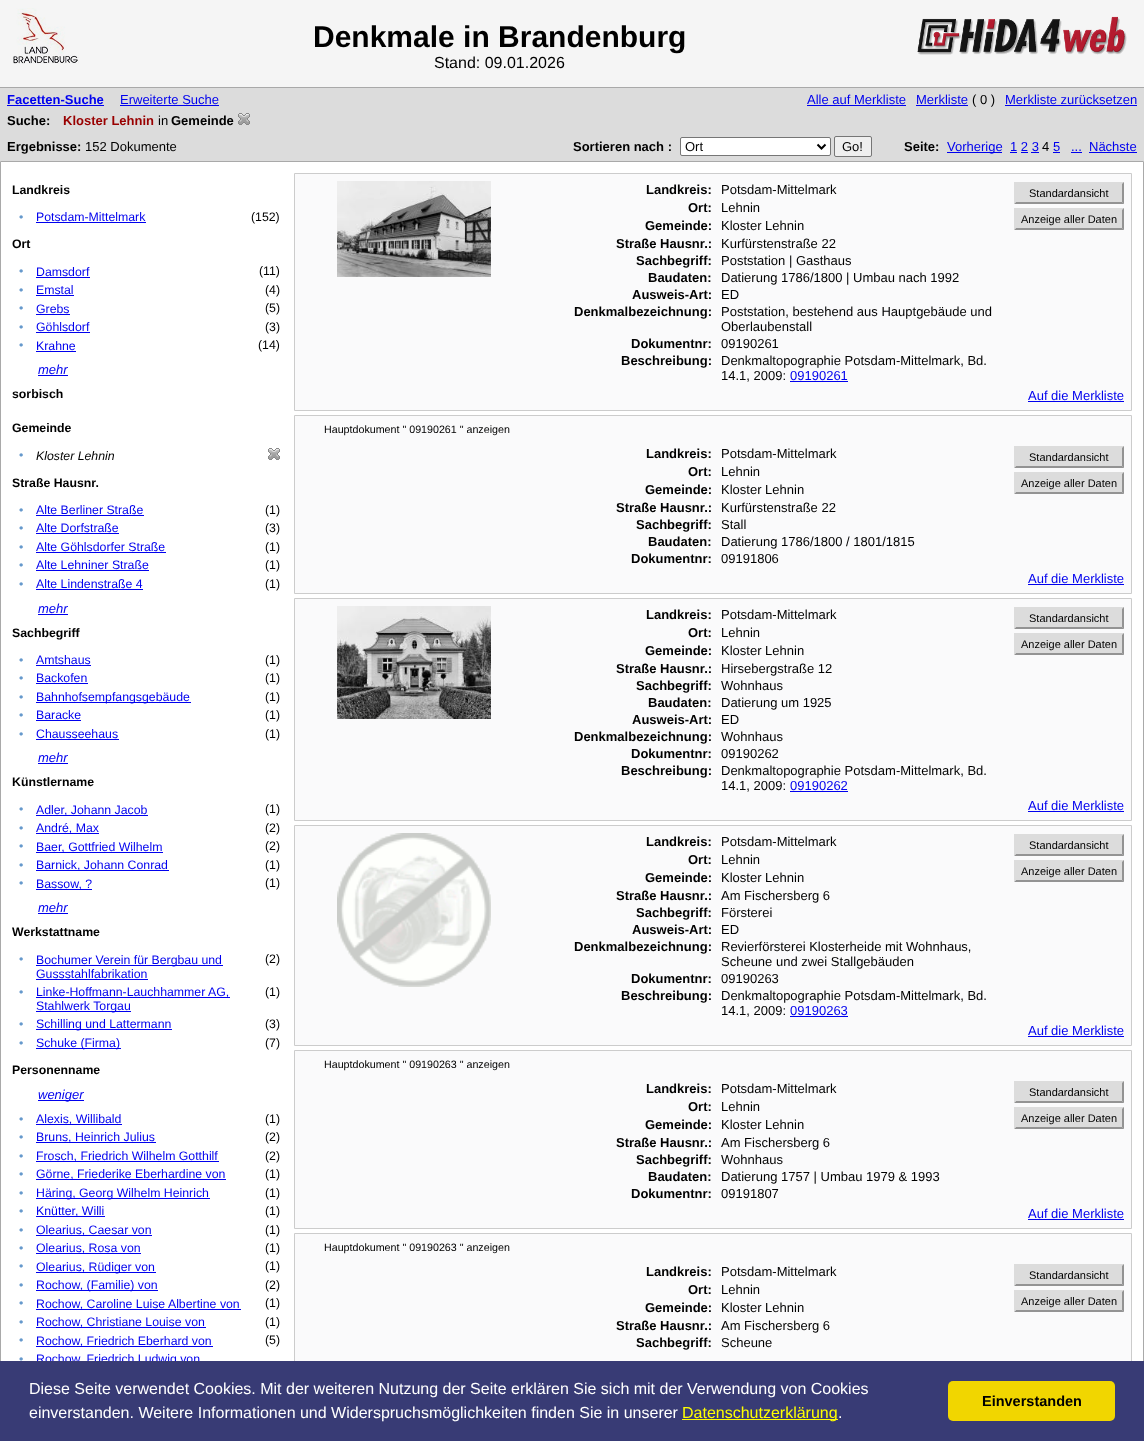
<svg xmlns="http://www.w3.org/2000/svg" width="1144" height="1441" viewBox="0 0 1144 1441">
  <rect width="100%" height="100%" fill="#fff"/>
  <path d="M0 0h1144v87H0z" fill="#f5f5f5"/>
  <image x="13" y="8" width="66" height="56" href="img/1.png"/>
  <image x="917" y="16" width="210" height="39" href="img/2.png"/>
  <path d="M0 88h1144v73H0z" fill="#dcdcdc"/>
  <path d="M0 87h1144v1H0z" fill="#a9a9a9"/>
  <path d="M7 105h97v1H7z" fill="#00e"/>
  <path d="M120 105h99v1H120z" fill="#00e"/>
  <path d="M807 105h99v1H807z" fill="#00e"/>
  <path d="M916 105h52v1H916z" fill="#00e"/>
  <path d="M1005 105h132v1H1005z" fill="#00e"/>
  <image x="238" y="113" width="12" height="12" href="img/3.png"/>
  <rect x="680.5" y="137.5" width="150" height="18" rx="1.5" fill="#fff" stroke="#767676"/>
  <path d="M817.5 144.5L821.5 148.5L825.5 144.5" fill="none" stroke="#000" stroke-width="2"/>
  <rect x="834.5" y="136.5" width="37" height="20" rx="1.5" fill="#efefef" stroke="#767676"/>
  <path d="M947 152h55v1H947z" fill="#00e"/>
  <path d="M1010 152h7v1H1010z" fill="#00e"/>
  <path d="M1053 152h7v1H1053z" fill="#00e"/>
  <path d="M1071 152h11v1H1071z" fill="#00e"/>
  <path d="M1089 152h48v1H1089z" fill="#00e"/>
  <path d="M1021 152h7v1H1021z" fill="#00e"/>
  <path d="M1031 152h8v1H1031z" fill="#00e"/>
  <path d="M0.5 161.5h1143v1237H0.5z" fill="none" stroke="#a9a9a9"/>
  <path d="M36 222h110v1H36z" fill="#00e"/>
  <path d="M36 277h54v1H36z" fill="#00e"/>
  <path d="M36 295h38v1H36z" fill="#00e"/>
  <path d="M36 314h34v1H36z" fill="#00e"/>
  <path d="M36 332h54v1H36z" fill="#00e"/>
  <path d="M36 351h40v1H36z" fill="#00e"/>
  <path d="M38 375h30v1H38z" fill="#00e"/>
  <image x="268" y="448" width="12" height="12" href="img/4.png"/>
  <path d="M36 515h108v1H36z" fill="#00e"/>
  <path d="M36 533h83v1H36z" fill="#00e"/>
  <path d="M36 552h130v1H36z" fill="#00e"/>
  <path d="M36 570h113v1H36z" fill="#00e"/>
  <path d="M36 589h107v1H36z" fill="#00e"/>
  <path d="M38 614h30v1H38z" fill="#00e"/>
  <path d="M36 665h55v1H36z" fill="#00e"/>
  <path d="M36 683h52v1H36z" fill="#00e"/>
  <path d="M36 702h155v1H36z" fill="#00e"/>
  <path d="M36 720h45v1H36z" fill="#00e"/>
  <path d="M36 739h83v1H36z" fill="#00e"/>
  <path d="M38 763h30v1H38z" fill="#00e"/>
  <path d="M36 815h112v1H36z" fill="#00e"/>
  <path d="M36 833h63v1H36z" fill="#00e"/>
  <path d="M36 852h127v1H36z" fill="#00e"/>
  <path d="M36 870h133v1H36z" fill="#00e"/>
  <path d="M36 889h56v1H36z" fill="#00e"/>
  <path d="M38 913h30v1H38z" fill="#00e"/>
  <path d="M36 965h187v1H36z" fill="#00e"/>
  <path d="M36 979h112v1H36z" fill="#00e"/>
  <path d="M36 997h194v1H36z" fill="#00e"/>
  <path d="M36 1011h95v1H36z" fill="#00e"/>
  <path d="M36 1029h136v1H36z" fill="#00e"/>
  <path d="M36 1048h85v1H36z" fill="#00e"/>
  <path d="M38 1100h46v1H38z" fill="#00e"/>
  <path d="M36 1124h86v1H36z" fill="#00e"/>
  <path d="M36 1142h120v1H36z" fill="#00e"/>
  <path d="M36 1161h183v1H36z" fill="#00e"/>
  <path d="M36 1179h190v1H36z" fill="#00e"/>
  <path d="M36 1198h174v1H36z" fill="#00e"/>
  <path d="M36 1216h69v1H36z" fill="#00e"/>
  <path d="M36 1235h116v1H36z" fill="#00e"/>
  <path d="M36 1253h105v1H36z" fill="#00e"/>
  <path d="M36 1272h120v1H36z" fill="#00e"/>
  <path d="M36 1290h122v1H36z" fill="#00e"/>
  <path d="M36 1309h205v1H36z" fill="#00e"/>
  <path d="M36 1327h170v1H36z" fill="#00e"/>
  <path d="M36 1346h177v1H36z" fill="#00e"/>
  <path d="M294.5 173.5h837v237H294.5z" fill="#fafafb" stroke="#ccc"/>
  <image x="337" y="181" width="154" height="96" href="img/5.png"/>
  <path d="M1014 182h110v22H1014z" fill="#dcdcdc"/>
  <path d="M1124 182V204L1122 202V184Z" fill="#939393"/>
  <path d="M1124 204H1014L1016 202H1122Z" fill="#939393"/>
  <path d="M1014 204V182L1016 184V202Z" fill="#dcdcdc"/>
  <path d="M1014 208h110v22H1014z" fill="#dcdcdc"/>
  <path d="M1124 208V230L1122 228V210Z" fill="#939393"/>
  <path d="M1124 230H1014L1016 228H1122Z" fill="#939393"/>
  <path d="M1014 230V208L1016 210V228Z" fill="#dcdcdc"/>
  <path d="M790 381h58v1H790z" fill="#00e"/>
  <path d="M1028 401h96v1H1028z" fill="#00e"/>
  <path d="M294.5 415.5h837v178H294.5z" fill="#fafafb" stroke="#ccc"/>
  <path d="M1014 446h110v22H1014z" fill="#dcdcdc"/>
  <path d="M1124 446V468L1122 466V448Z" fill="#939393"/>
  <path d="M1124 468H1014L1016 466H1122Z" fill="#939393"/>
  <path d="M1014 468V446L1016 448V466Z" fill="#dcdcdc"/>
  <path d="M1014 472h110v22H1014z" fill="#dcdcdc"/>
  <path d="M1124 472V494L1122 492V474Z" fill="#939393"/>
  <path d="M1124 494H1014L1016 492H1122Z" fill="#939393"/>
  <path d="M1014 494V472L1016 474V492Z" fill="#dcdcdc"/>
  <path d="M1028 584h96v1H1028z" fill="#00e"/>
  <path d="M294.5 598.5h837v222H294.5z" fill="#fafafb" stroke="#ccc"/>
  <image x="337" y="606" width="154" height="113" href="img/6.png"/>
  <path d="M1014 607h110v22H1014z" fill="#dcdcdc"/>
  <path d="M1124 607V629L1122 627V609Z" fill="#939393"/>
  <path d="M1124 629H1014L1016 627H1122Z" fill="#939393"/>
  <path d="M1014 629V607L1016 609V627Z" fill="#dcdcdc"/>
  <path d="M1014 633h110v22H1014z" fill="#dcdcdc"/>
  <path d="M1124 633V655L1122 653V635Z" fill="#939393"/>
  <path d="M1124 655H1014L1016 653H1122Z" fill="#939393"/>
  <path d="M1014 655V633L1016 635V653Z" fill="#dcdcdc"/>
  <path d="M790 791h58v1H790z" fill="#00e"/>
  <path d="M1028 811h96v1H1028z" fill="#00e"/>
  <path d="M294.5 825.5h837v220H294.5z" fill="#fafafb" stroke="#ccc"/>
  <image x="337" y="833" width="154" height="154" href="img/7.png"/>
  <path d="M1014 834h110v22H1014z" fill="#dcdcdc"/>
  <path d="M1124 834V856L1122 854V836Z" fill="#939393"/>
  <path d="M1124 856H1014L1016 854H1122Z" fill="#939393"/>
  <path d="M1014 856V834L1016 836V854Z" fill="#dcdcdc"/>
  <path d="M1014 860h110v22H1014z" fill="#dcdcdc"/>
  <path d="M1124 860V882L1122 880V862Z" fill="#939393"/>
  <path d="M1124 882H1014L1016 880H1122Z" fill="#939393"/>
  <path d="M1014 882V860L1016 862V880Z" fill="#dcdcdc"/>
  <path d="M790 1016h58v1H790z" fill="#00e"/>
  <path d="M1028 1036h96v1H1028z" fill="#00e"/>
  <path d="M294.5 1050.5h837v178H294.5z" fill="#fafafb" stroke="#ccc"/>
  <path d="M1014 1081h110v22H1014z" fill="#dcdcdc"/>
  <path d="M1124 1081V1103L1122 1101V1083Z" fill="#939393"/>
  <path d="M1124 1103H1014L1016 1101H1122Z" fill="#939393"/>
  <path d="M1014 1103V1081L1016 1083V1101Z" fill="#dcdcdc"/>
  <path d="M1014 1107h110v22H1014z" fill="#dcdcdc"/>
  <path d="M1124 1107V1129L1122 1127V1109Z" fill="#939393"/>
  <path d="M1124 1129H1014L1016 1127H1122Z" fill="#939393"/>
  <path d="M1014 1129V1107L1016 1109V1127Z" fill="#dcdcdc"/>
  <path d="M1028 1219h96v1H1028z" fill="#00e"/>
  <path d="M295 1234h836v127H295z" fill="#fafafb"/>
  <path d="M294.5 1233.5h837v178H294.5z" fill="none" stroke="#ccc"/>
  <path d="M1014 1264h110v22H1014z" fill="#dcdcdc"/>
  <path d="M1124 1264V1286L1122 1284V1266Z" fill="#939393"/>
  <path d="M1124 1286H1014L1016 1284H1122Z" fill="#939393"/>
  <path d="M1014 1286V1264L1016 1266V1284Z" fill="#dcdcdc"/>
  <path d="M1014 1290h110v22H1014z" fill="#dcdcdc"/>
  <path d="M1124 1290V1312L1122 1310V1292Z" fill="#939393"/>
  <path d="M1124 1312H1014L1016 1310H1122Z" fill="#939393"/>
  <path d="M1014 1312V1290L1016 1292V1310Z" fill="#dcdcdc"/>
  <text x="313" y="47" font-family="Liberation Sans" font-size="30" font-weight="bold" fill="#000">Denkmale in Brandenburg</text>
  <text x="434" y="68" font-family="Liberation Sans" font-size="16" fill="#000">Stand: 09.01.2026</text>
  <text x="7" y="104" font-family="Liberation Sans" font-size="13" font-weight="bold" fill="#00e">Facetten-Suche</text>
  <g font-family="Liberation Sans" font-size="13" fill="#00e">
    <text x="120" y="104">Erweiterte Suche</text>
    <text x="807" y="104">Alle auf Merkliste</text>
    <text x="916" y="104">Merkliste</text>
  </g>
  <text x="972" y="104" font-family="Liberation Sans" font-size="13" fill="#000">( 0 )</text>
  <text x="1005" y="104" font-family="Liberation Sans" font-size="13" fill="#00e">Merkliste zurücksetzen</text>
  <text x="7" y="125" font-family="Liberation Sans" font-size="13" font-weight="bold" fill="#000">Suche:</text>
  <text x="63" y="125" font-family="Liberation Sans" font-size="13" font-weight="bold" fill="#900">Kloster Lehnin</text>
  <text x="158" y="125" font-family="Liberation Sans" font-size="13" fill="#000">in</text>
  <g font-family="Liberation Sans" font-size="13" font-weight="bold" fill="#000">
    <text x="171" y="125">Gemeinde</text>
    <text x="7" y="151">Ergebnisse:</text>
  </g>
  <text x="85" y="151" font-family="Liberation Sans" font-size="13" fill="#000">152 Dokumente</text>
  <text x="573" y="151" font-family="Liberation Sans" font-size="13" font-weight="bold" fill="#000">Sortieren nach :</text>
  <g font-family="Liberation Sans" font-size="13" fill="#000">
    <text x="685" y="151">Ort</text>
    <text x="842" y="151">Go!</text>
  </g>
  <text x="904" y="151" font-family="Liberation Sans" font-size="13" font-weight="bold" fill="#000">Seite:</text>
  <g font-family="Liberation Sans" font-size="13" fill="#00e">
    <text x="947" y="151">Vorherige</text>
    <text x="1010" y="151">1 2 3</text>
  </g>
  <text x="1042" y="151" font-family="Liberation Sans" font-size="13" fill="#000">4</text>
  <g font-family="Liberation Sans" font-size="13" fill="#00e">
    <text x="1053" y="151">5</text>
    <text x="1071" y="151">...</text>
    <text x="1089" y="151">Nächste</text>
  </g>
  <text x="12" y="194" font-family="Liberation Sans" font-size="12.3" font-weight="bold" fill="#000">Landkreis</text>
  <text x="19" y="221" font-family="Liberation Sans" font-size="12.3" fill="#69c">•</text>
  <text x="36" y="221" font-family="Liberation Sans" font-size="12.3" fill="#00e">Potsdam-Mittelmark</text>
  <text x="251" y="221" font-family="Liberation Sans" font-size="12.3" fill="#000">(152)</text>
  <text x="12" y="248" font-family="Liberation Sans" font-size="12.3" font-weight="bold" fill="#000">Ort</text>
  <text x="19" y="275" font-family="Liberation Sans" font-size="12.3" fill="#69c">•</text>
  <text x="36" y="276" font-family="Liberation Sans" font-size="12.3" fill="#00e">Damsdorf</text>
  <text x="259" y="275" font-family="Liberation Sans" font-size="12.3" fill="#000">(11)</text>
  <text x="19" y="294" font-family="Liberation Sans" font-size="12.3" fill="#69c">•</text>
  <text x="36" y="294" font-family="Liberation Sans" font-size="12.3" fill="#00e">Emstal</text>
  <text x="265" y="294" font-family="Liberation Sans" font-size="12.3" fill="#000">(4)</text>
  <text x="19" y="312" font-family="Liberation Sans" font-size="12.3" fill="#69c">•</text>
  <text x="36" y="313" font-family="Liberation Sans" font-size="12.3" fill="#00e">Grebs</text>
  <text x="265" y="312" font-family="Liberation Sans" font-size="12.3" fill="#000">(5)</text>
  <text x="19" y="331" font-family="Liberation Sans" font-size="12.3" fill="#69c">•</text>
  <text x="36" y="331" font-family="Liberation Sans" font-size="12.3" fill="#00e">Göhlsdorf</text>
  <text x="265" y="331" font-family="Liberation Sans" font-size="12.3" fill="#000">(3)</text>
  <text x="19" y="349" font-family="Liberation Sans" font-size="12.3" fill="#69c">•</text>
  <text x="36" y="350" font-family="Liberation Sans" font-size="12.3" fill="#00e">Krahne</text>
  <text x="258" y="349" font-family="Liberation Sans" font-size="12.3" fill="#000">(14)</text>
  <text x="38" y="374" font-family="Liberation Sans" font-size="13" font-style="italic" fill="#00e">mehr</text>
  <g font-family="Liberation Sans" font-size="12.3" font-weight="bold" fill="#000">
    <text x="12" y="398">sorbisch</text>
    <text x="12" y="432">Gemeinde</text>
  </g>
  <text x="19" y="459" font-family="Liberation Sans" font-size="12.3" fill="#69c">•</text>
  <text x="36" y="460" font-family="Liberation Sans" font-size="12.3" font-style="italic" fill="#000">Kloster Lehnin</text>
  <text x="12" y="487" font-family="Liberation Sans" font-size="12.3" font-weight="bold" fill="#000">Straße Hausnr.</text>
  <text x="19" y="514" font-family="Liberation Sans" font-size="12.3" fill="#69c">•</text>
  <text x="36" y="514" font-family="Liberation Sans" font-size="12.3" fill="#00e">Alte Berliner Straße</text>
  <text x="265" y="514" font-family="Liberation Sans" font-size="12.3" fill="#000">(1)</text>
  <text x="19" y="532" font-family="Liberation Sans" font-size="12.3" fill="#69c">•</text>
  <text x="36" y="532" font-family="Liberation Sans" font-size="12.3" fill="#00e">Alte Dorfstraße</text>
  <text x="265" y="532" font-family="Liberation Sans" font-size="12.3" fill="#000">(3)</text>
  <text x="19" y="551" font-family="Liberation Sans" font-size="12.3" fill="#69c">•</text>
  <text x="36" y="551" font-family="Liberation Sans" font-size="12.3" fill="#00e">Alte Göhlsdorfer Straße</text>
  <text x="265" y="551" font-family="Liberation Sans" font-size="12.3" fill="#000">(1)</text>
  <text x="19" y="569" font-family="Liberation Sans" font-size="12.3" fill="#69c">•</text>
  <text x="36" y="569" font-family="Liberation Sans" font-size="12.3" fill="#00e">Alte Lehniner Straße</text>
  <text x="265" y="569" font-family="Liberation Sans" font-size="12.3" fill="#000">(1)</text>
  <text x="19" y="588" font-family="Liberation Sans" font-size="12.3" fill="#69c">•</text>
  <text x="36" y="588" font-family="Liberation Sans" font-size="12.3" fill="#00e">Alte Lindenstraße 4</text>
  <text x="265" y="588" font-family="Liberation Sans" font-size="12.3" fill="#000">(1)</text>
  <text x="38" y="613" font-family="Liberation Sans" font-size="13" font-style="italic" fill="#00e">mehr</text>
  <text x="12" y="637" font-family="Liberation Sans" font-size="12.3" font-weight="bold" fill="#000">Sachbegriff</text>
  <text x="19" y="664" font-family="Liberation Sans" font-size="12.3" fill="#69c">•</text>
  <text x="36" y="664" font-family="Liberation Sans" font-size="12.3" fill="#00e">Amtshaus</text>
  <text x="265" y="664" font-family="Liberation Sans" font-size="12.3" fill="#000">(1)</text>
  <text x="19" y="682" font-family="Liberation Sans" font-size="12.3" fill="#69c">•</text>
  <text x="36" y="682" font-family="Liberation Sans" font-size="12.3" fill="#00e">Backofen</text>
  <text x="265" y="682" font-family="Liberation Sans" font-size="12.3" fill="#000">(1)</text>
  <text x="19" y="701" font-family="Liberation Sans" font-size="12.3" fill="#69c">•</text>
  <text x="36" y="701" font-family="Liberation Sans" font-size="12.3" fill="#00e">Bahnhofsempfangsgebäude</text>
  <text x="265" y="701" font-family="Liberation Sans" font-size="12.3" fill="#000">(1)</text>
  <text x="19" y="719" font-family="Liberation Sans" font-size="12.3" fill="#69c">•</text>
  <text x="36" y="719" font-family="Liberation Sans" font-size="12.3" fill="#00e">Baracke</text>
  <text x="265" y="719" font-family="Liberation Sans" font-size="12.3" fill="#000">(1)</text>
  <text x="19" y="738" font-family="Liberation Sans" font-size="12.3" fill="#69c">•</text>
  <text x="36" y="738" font-family="Liberation Sans" font-size="12.3" fill="#00e">Chausseehaus</text>
  <text x="265" y="738" font-family="Liberation Sans" font-size="12.3" fill="#000">(1)</text>
  <text x="38" y="762" font-family="Liberation Sans" font-size="13" font-style="italic" fill="#00e">mehr</text>
  <text x="12" y="786" font-family="Liberation Sans" font-size="12.3" font-weight="bold" fill="#000">Künstlername</text>
  <text x="19" y="813" font-family="Liberation Sans" font-size="12.3" fill="#69c">•</text>
  <text x="36" y="814" font-family="Liberation Sans" font-size="12.3" fill="#00e">Adler, Johann Jacob</text>
  <text x="265" y="813" font-family="Liberation Sans" font-size="12.3" fill="#000">(1)</text>
  <text x="19" y="832" font-family="Liberation Sans" font-size="12.3" fill="#69c">•</text>
  <text x="36" y="832" font-family="Liberation Sans" font-size="12.3" fill="#00e">André, Max</text>
  <text x="265" y="832" font-family="Liberation Sans" font-size="12.3" fill="#000">(2)</text>
  <text x="19" y="850" font-family="Liberation Sans" font-size="12.3" fill="#69c">•</text>
  <text x="36" y="851" font-family="Liberation Sans" font-size="12.3" fill="#00e">Baer, Gottfried Wilhelm</text>
  <text x="265" y="850" font-family="Liberation Sans" font-size="12.3" fill="#000">(2)</text>
  <text x="19" y="869" font-family="Liberation Sans" font-size="12.3" fill="#69c">•</text>
  <text x="36" y="869" font-family="Liberation Sans" font-size="12.3" fill="#00e">Barnick, Johann Conrad</text>
  <text x="265" y="869" font-family="Liberation Sans" font-size="12.3" fill="#000">(1)</text>
  <text x="19" y="887" font-family="Liberation Sans" font-size="12.3" fill="#69c">•</text>
  <text x="36" y="888" font-family="Liberation Sans" font-size="12.3" fill="#00e">Bassow, ?</text>
  <text x="265" y="887" font-family="Liberation Sans" font-size="12.3" fill="#000">(1)</text>
  <text x="38" y="912" font-family="Liberation Sans" font-size="13" font-style="italic" fill="#00e">mehr</text>
  <text x="12" y="936" font-family="Liberation Sans" font-size="12.3" font-weight="bold" fill="#000">Werkstattname</text>
  <text x="19" y="963" font-family="Liberation Sans" font-size="12.3" fill="#69c">•</text>
  <g font-family="Liberation Sans" font-size="12.3" fill="#00e">
    <text x="36" y="964">Bochumer Verein für Bergbau und</text>
    <text x="36" y="978">Gussstahlfabrikation</text>
  </g>
  <text x="265" y="963" font-family="Liberation Sans" font-size="12.3" fill="#000">(2)</text>
  <text x="19" y="996" font-family="Liberation Sans" font-size="12.3" fill="#69c">•</text>
  <g font-family="Liberation Sans" font-size="12.3" fill="#00e">
    <text x="36" y="996">Linke-Hoffmann-Lauchhammer AG,</text>
    <text x="36" y="1010">Stahlwerk Torgau</text>
  </g>
  <text x="265" y="996" font-family="Liberation Sans" font-size="12.3" fill="#000">(1)</text>
  <text x="19" y="1028" font-family="Liberation Sans" font-size="12.3" fill="#69c">•</text>
  <text x="36" y="1028" font-family="Liberation Sans" font-size="12.3" fill="#00e">Schilling und Lattermann</text>
  <text x="265" y="1028" font-family="Liberation Sans" font-size="12.3" fill="#000">(3)</text>
  <text x="19" y="1047" font-family="Liberation Sans" font-size="12.3" fill="#69c">•</text>
  <text x="36" y="1047" font-family="Liberation Sans" font-size="12.3" fill="#00e">Schuke (Firma)</text>
  <text x="265" y="1047" font-family="Liberation Sans" font-size="12.3" fill="#000">(7)</text>
  <text x="12" y="1074" font-family="Liberation Sans" font-size="12.3" font-weight="bold" fill="#000">Personenname</text>
  <text x="38" y="1099" font-family="Liberation Sans" font-size="13" font-style="italic" fill="#00e">weniger</text>
  <text x="19" y="1123" font-family="Liberation Sans" font-size="12.3" fill="#69c">•</text>
  <text x="36" y="1123" font-family="Liberation Sans" font-size="12.3" fill="#00e">Alexis, Willibald</text>
  <text x="265" y="1123" font-family="Liberation Sans" font-size="12.3" fill="#000">(1)</text>
  <text x="19" y="1141" font-family="Liberation Sans" font-size="12.3" fill="#69c">•</text>
  <text x="36" y="1141" font-family="Liberation Sans" font-size="12.3" fill="#00e">Bruns, Heinrich Julius</text>
  <text x="265" y="1141" font-family="Liberation Sans" font-size="12.3" fill="#000">(2)</text>
  <text x="19" y="1160" font-family="Liberation Sans" font-size="12.3" fill="#69c">•</text>
  <text x="36" y="1160" font-family="Liberation Sans" font-size="12.3" fill="#00e">Frosch, Friedrich Wilhelm Gotthilf</text>
  <text x="265" y="1160" font-family="Liberation Sans" font-size="12.3" fill="#000">(2)</text>
  <text x="19" y="1178" font-family="Liberation Sans" font-size="12.3" fill="#69c">•</text>
  <text x="36" y="1178" font-family="Liberation Sans" font-size="12.3" fill="#00e">Görne, Friederike Eberhardine von</text>
  <text x="265" y="1178" font-family="Liberation Sans" font-size="12.3" fill="#000">(1)</text>
  <text x="19" y="1197" font-family="Liberation Sans" font-size="12.3" fill="#69c">•</text>
  <text x="36" y="1197" font-family="Liberation Sans" font-size="12.3" fill="#00e">Häring, Georg Wilhelm Heinrich</text>
  <text x="265" y="1197" font-family="Liberation Sans" font-size="12.3" fill="#000">(1)</text>
  <text x="19" y="1215" font-family="Liberation Sans" font-size="12.3" fill="#69c">•</text>
  <text x="36" y="1215" font-family="Liberation Sans" font-size="12.3" fill="#00e">Knütter, Willi</text>
  <text x="265" y="1215" font-family="Liberation Sans" font-size="12.3" fill="#000">(1)</text>
  <text x="19" y="1234" font-family="Liberation Sans" font-size="12.3" fill="#69c">•</text>
  <text x="36" y="1234" font-family="Liberation Sans" font-size="12.3" fill="#00e">Olearius, Caesar von</text>
  <text x="265" y="1234" font-family="Liberation Sans" font-size="12.3" fill="#000">(1)</text>
  <text x="19" y="1252" font-family="Liberation Sans" font-size="12.3" fill="#69c">•</text>
  <text x="36" y="1252" font-family="Liberation Sans" font-size="12.3" fill="#00e">Olearius, Rosa von</text>
  <text x="265" y="1252" font-family="Liberation Sans" font-size="12.3" fill="#000">(1)</text>
  <text x="19" y="1270" font-family="Liberation Sans" font-size="12.3" fill="#69c">•</text>
  <text x="36" y="1271" font-family="Liberation Sans" font-size="12.3" fill="#00e">Olearius, Rüdiger von</text>
  <text x="265" y="1270" font-family="Liberation Sans" font-size="12.3" fill="#000">(1)</text>
  <text x="19" y="1289" font-family="Liberation Sans" font-size="12.3" fill="#69c">•</text>
  <text x="36" y="1289" font-family="Liberation Sans" font-size="12.3" fill="#00e">Rochow, (Familie) von</text>
  <text x="265" y="1289" font-family="Liberation Sans" font-size="12.3" fill="#000">(2)</text>
  <text x="19" y="1307" font-family="Liberation Sans" font-size="12.3" fill="#69c">•</text>
  <text x="36" y="1308" font-family="Liberation Sans" font-size="12.3" fill="#00e">Rochow, Caroline Luise Albertine von</text>
  <text x="265" y="1307" font-family="Liberation Sans" font-size="12.3" fill="#000">(1)</text>
  <text x="19" y="1326" font-family="Liberation Sans" font-size="12.3" fill="#69c">•</text>
  <text x="36" y="1326" font-family="Liberation Sans" font-size="12.3" fill="#00e">Rochow, Christiane Louise von</text>
  <text x="265" y="1326" font-family="Liberation Sans" font-size="12.3" fill="#000">(1)</text>
  <text x="19" y="1344" font-family="Liberation Sans" font-size="12.3" fill="#69c">•</text>
  <text x="36" y="1345" font-family="Liberation Sans" font-size="12.3" fill="#00e">Rochow, Friedrich Eberhard von</text>
  <text x="265" y="1344" font-family="Liberation Sans" font-size="12.3" fill="#000">(5)</text>
  <text x="19" y="1363" font-family="Liberation Sans" font-size="12.3" fill="#69c">•</text>
  <text x="36" y="1363" font-family="Liberation Sans" font-size="12.3" fill="#00e">Rochow, Friedrich Ludwig von</text>
  <text x="646" y="194" font-family="Liberation Sans" font-size="13" font-weight="bold" fill="#000">Landkreis:</text>
  <text x="721" y="194" font-family="Liberation Sans" font-size="13" fill="#000">Potsdam-Mittelmark</text>
  <g font-family="Liberation Sans" font-size="11" fill="#000">
    <text x="1029" y="197">Standardansicht</text>
    <text x="1021" y="223">Anzeige aller Daten</text>
  </g>
  <text x="688" y="212" font-family="Liberation Sans" font-size="13" font-weight="bold" fill="#000">Ort:</text>
  <text x="721" y="212" font-family="Liberation Sans" font-size="13" fill="#000">Lehnin</text>
  <text x="645" y="230" font-family="Liberation Sans" font-size="13" font-weight="bold" fill="#000">Gemeinde:</text>
  <text x="721" y="230" font-family="Liberation Sans" font-size="13" fill="#000">Kloster Lehnin</text>
  <text x="616" y="248" font-family="Liberation Sans" font-size="13" font-weight="bold" fill="#000">Straße Hausnr.:</text>
  <text x="721" y="248" font-family="Liberation Sans" font-size="13" fill="#000">Kurfürstenstraße 22</text>
  <text x="636" y="265" font-family="Liberation Sans" font-size="13" font-weight="bold" fill="#000">Sachbegriff:</text>
  <text x="721" y="265" font-family="Liberation Sans" font-size="13" fill="#000">Poststation | Gasthaus</text>
  <text x="648" y="282" font-family="Liberation Sans" font-size="13" font-weight="bold" fill="#000">Baudaten:</text>
  <text x="721" y="282" font-family="Liberation Sans" font-size="13" fill="#000">Datierung 1786/1800 | Umbau nach 1992</text>
  <text x="632" y="299" font-family="Liberation Sans" font-size="13" font-weight="bold" fill="#000">Ausweis-Art:</text>
  <text x="721" y="299" font-family="Liberation Sans" font-size="13" fill="#000">ED</text>
  <text x="574" y="316" font-family="Liberation Sans" font-size="13" font-weight="bold" fill="#000">Denkmalbezeichnung:</text>
  <g font-family="Liberation Sans" font-size="13" fill="#000">
    <text x="721" y="316">Poststation, bestehend aus Hauptgebäude und</text>
    <text x="721" y="331">Oberlaubenstall</text>
  </g>
  <text x="631" y="348" font-family="Liberation Sans" font-size="13" font-weight="bold" fill="#000">Dokumentnr:</text>
  <text x="721" y="348" font-family="Liberation Sans" font-size="13" fill="#000">09190261</text>
  <text x="621" y="365" font-family="Liberation Sans" font-size="13" font-weight="bold" fill="#000">Beschreibung:</text>
  <g font-family="Liberation Sans" font-size="13" fill="#000">
    <text x="721" y="365">Denkmaltopographie Potsdam-Mittelmark, Bd.</text>
    <text x="721" y="380">14.1, 2009:</text>
  </g>
  <g font-family="Liberation Sans" font-size="13" fill="#00e">
    <text x="790" y="380">09190261</text>
    <text x="1028" y="400">Auf die Merkliste</text>
  </g>
  <text x="324" y="433" font-family="Liberation Sans" font-size="10.7" fill="#000">Hauptdokument " 09190261 " anzeigen</text>
  <text x="646" y="458" font-family="Liberation Sans" font-size="13" font-weight="bold" fill="#000">Landkreis:</text>
  <text x="721" y="458" font-family="Liberation Sans" font-size="13" fill="#000">Potsdam-Mittelmark</text>
  <g font-family="Liberation Sans" font-size="11" fill="#000">
    <text x="1029" y="461">Standardansicht</text>
    <text x="1021" y="487">Anzeige aller Daten</text>
  </g>
  <text x="688" y="476" font-family="Liberation Sans" font-size="13" font-weight="bold" fill="#000">Ort:</text>
  <text x="721" y="476" font-family="Liberation Sans" font-size="13" fill="#000">Lehnin</text>
  <text x="645" y="494" font-family="Liberation Sans" font-size="13" font-weight="bold" fill="#000">Gemeinde:</text>
  <text x="721" y="494" font-family="Liberation Sans" font-size="13" fill="#000">Kloster Lehnin</text>
  <text x="616" y="512" font-family="Liberation Sans" font-size="13" font-weight="bold" fill="#000">Straße Hausnr.:</text>
  <text x="721" y="512" font-family="Liberation Sans" font-size="13" fill="#000">Kurfürstenstraße 22</text>
  <text x="636" y="529" font-family="Liberation Sans" font-size="13" font-weight="bold" fill="#000">Sachbegriff:</text>
  <text x="721" y="529" font-family="Liberation Sans" font-size="13" fill="#000">Stall</text>
  <text x="648" y="546" font-family="Liberation Sans" font-size="13" font-weight="bold" fill="#000">Baudaten:</text>
  <text x="721" y="546" font-family="Liberation Sans" font-size="13" fill="#000">Datierung 1786/1800 / 1801/1815</text>
  <text x="631" y="563" font-family="Liberation Sans" font-size="13" font-weight="bold" fill="#000">Dokumentnr:</text>
  <text x="721" y="563" font-family="Liberation Sans" font-size="13" fill="#000">09191806</text>
  <text x="1028" y="583" font-family="Liberation Sans" font-size="13" fill="#00e">Auf die Merkliste</text>
  <text x="646" y="619" font-family="Liberation Sans" font-size="13" font-weight="bold" fill="#000">Landkreis:</text>
  <text x="721" y="619" font-family="Liberation Sans" font-size="13" fill="#000">Potsdam-Mittelmark</text>
  <g font-family="Liberation Sans" font-size="11" fill="#000">
    <text x="1029" y="622">Standardansicht</text>
    <text x="1021" y="648">Anzeige aller Daten</text>
  </g>
  <text x="688" y="637" font-family="Liberation Sans" font-size="13" font-weight="bold" fill="#000">Ort:</text>
  <text x="721" y="637" font-family="Liberation Sans" font-size="13" fill="#000">Lehnin</text>
  <text x="645" y="655" font-family="Liberation Sans" font-size="13" font-weight="bold" fill="#000">Gemeinde:</text>
  <text x="721" y="655" font-family="Liberation Sans" font-size="13" fill="#000">Kloster Lehnin</text>
  <text x="616" y="673" font-family="Liberation Sans" font-size="13" font-weight="bold" fill="#000">Straße Hausnr.:</text>
  <text x="721" y="673" font-family="Liberation Sans" font-size="13" fill="#000">Hirsebergstraße 12</text>
  <text x="636" y="690" font-family="Liberation Sans" font-size="13" font-weight="bold" fill="#000">Sachbegriff:</text>
  <text x="721" y="690" font-family="Liberation Sans" font-size="13" fill="#000">Wohnhaus</text>
  <text x="648" y="707" font-family="Liberation Sans" font-size="13" font-weight="bold" fill="#000">Baudaten:</text>
  <text x="721" y="707" font-family="Liberation Sans" font-size="13" fill="#000">Datierung um 1925</text>
  <text x="632" y="724" font-family="Liberation Sans" font-size="13" font-weight="bold" fill="#000">Ausweis-Art:</text>
  <text x="721" y="724" font-family="Liberation Sans" font-size="13" fill="#000">ED</text>
  <text x="574" y="741" font-family="Liberation Sans" font-size="13" font-weight="bold" fill="#000">Denkmalbezeichnung:</text>
  <text x="721" y="741" font-family="Liberation Sans" font-size="13" fill="#000">Wohnhaus</text>
  <text x="631" y="758" font-family="Liberation Sans" font-size="13" font-weight="bold" fill="#000">Dokumentnr:</text>
  <text x="721" y="758" font-family="Liberation Sans" font-size="13" fill="#000">09190262</text>
  <text x="621" y="775" font-family="Liberation Sans" font-size="13" font-weight="bold" fill="#000">Beschreibung:</text>
  <g font-family="Liberation Sans" font-size="13" fill="#000">
    <text x="721" y="775">Denkmaltopographie Potsdam-Mittelmark, Bd.</text>
    <text x="721" y="790">14.1, 2009:</text>
  </g>
  <g font-family="Liberation Sans" font-size="13" fill="#00e">
    <text x="790" y="790">09190262</text>
    <text x="1028" y="810">Auf die Merkliste</text>
  </g>
  <text x="646" y="846" font-family="Liberation Sans" font-size="13" font-weight="bold" fill="#000">Landkreis:</text>
  <text x="721" y="846" font-family="Liberation Sans" font-size="13" fill="#000">Potsdam-Mittelmark</text>
  <g font-family="Liberation Sans" font-size="11" fill="#000">
    <text x="1029" y="849">Standardansicht</text>
    <text x="1021" y="875">Anzeige aller Daten</text>
  </g>
  <text x="688" y="864" font-family="Liberation Sans" font-size="13" font-weight="bold" fill="#000">Ort:</text>
  <text x="721" y="864" font-family="Liberation Sans" font-size="13" fill="#000">Lehnin</text>
  <text x="645" y="882" font-family="Liberation Sans" font-size="13" font-weight="bold" fill="#000">Gemeinde:</text>
  <text x="721" y="882" font-family="Liberation Sans" font-size="13" fill="#000">Kloster Lehnin</text>
  <text x="616" y="900" font-family="Liberation Sans" font-size="13" font-weight="bold" fill="#000">Straße Hausnr.:</text>
  <text x="721" y="900" font-family="Liberation Sans" font-size="13" fill="#000">Am Fischersberg 6</text>
  <text x="636" y="917" font-family="Liberation Sans" font-size="13" font-weight="bold" fill="#000">Sachbegriff:</text>
  <text x="721" y="917" font-family="Liberation Sans" font-size="13" fill="#000">Försterei</text>
  <text x="632" y="934" font-family="Liberation Sans" font-size="13" font-weight="bold" fill="#000">Ausweis-Art:</text>
  <text x="721" y="934" font-family="Liberation Sans" font-size="13" fill="#000">ED</text>
  <text x="574" y="951" font-family="Liberation Sans" font-size="13" font-weight="bold" fill="#000">Denkmalbezeichnung:</text>
  <g font-family="Liberation Sans" font-size="13" fill="#000">
    <text x="721" y="951">Revierförsterei Klosterheide mit Wohnhaus,</text>
    <text x="721" y="966">Scheune und zwei Stallgebäuden</text>
  </g>
  <text x="631" y="983" font-family="Liberation Sans" font-size="13" font-weight="bold" fill="#000">Dokumentnr:</text>
  <text x="721" y="983" font-family="Liberation Sans" font-size="13" fill="#000">09190263</text>
  <text x="621" y="1000" font-family="Liberation Sans" font-size="13" font-weight="bold" fill="#000">Beschreibung:</text>
  <g font-family="Liberation Sans" font-size="13" fill="#000">
    <text x="721" y="1000">Denkmaltopographie Potsdam-Mittelmark, Bd.</text>
    <text x="721" y="1015">14.1, 2009:</text>
  </g>
  <g font-family="Liberation Sans" font-size="13" fill="#00e">
    <text x="790" y="1015">09190263</text>
    <text x="1028" y="1035">Auf die Merkliste</text>
  </g>
  <text x="324" y="1068" font-family="Liberation Sans" font-size="10.7" fill="#000">Hauptdokument " 09190263 " anzeigen</text>
  <text x="646" y="1093" font-family="Liberation Sans" font-size="13" font-weight="bold" fill="#000">Landkreis:</text>
  <text x="721" y="1093" font-family="Liberation Sans" font-size="13" fill="#000">Potsdam-Mittelmark</text>
  <g font-family="Liberation Sans" font-size="11" fill="#000">
    <text x="1029" y="1096">Standardansicht</text>
    <text x="1021" y="1122">Anzeige aller Daten</text>
  </g>
  <text x="688" y="1111" font-family="Liberation Sans" font-size="13" font-weight="bold" fill="#000">Ort:</text>
  <text x="721" y="1111" font-family="Liberation Sans" font-size="13" fill="#000">Lehnin</text>
  <text x="645" y="1129" font-family="Liberation Sans" font-size="13" font-weight="bold" fill="#000">Gemeinde:</text>
  <text x="721" y="1129" font-family="Liberation Sans" font-size="13" fill="#000">Kloster Lehnin</text>
  <text x="616" y="1147" font-family="Liberation Sans" font-size="13" font-weight="bold" fill="#000">Straße Hausnr.:</text>
  <text x="721" y="1147" font-family="Liberation Sans" font-size="13" fill="#000">Am Fischersberg 6</text>
  <text x="636" y="1164" font-family="Liberation Sans" font-size="13" font-weight="bold" fill="#000">Sachbegriff:</text>
  <text x="721" y="1164" font-family="Liberation Sans" font-size="13" fill="#000">Wohnhaus</text>
  <text x="648" y="1181" font-family="Liberation Sans" font-size="13" font-weight="bold" fill="#000">Baudaten:</text>
  <text x="721" y="1181" font-family="Liberation Sans" font-size="13" fill="#000">Datierung 1757 | Umbau 1979 &amp; 1993</text>
  <text x="631" y="1198" font-family="Liberation Sans" font-size="13" font-weight="bold" fill="#000">Dokumentnr:</text>
  <text x="721" y="1198" font-family="Liberation Sans" font-size="13" fill="#000">09191807</text>
  <text x="1028" y="1218" font-family="Liberation Sans" font-size="13" fill="#00e">Auf die Merkliste</text>
  <text x="324" y="1251" font-family="Liberation Sans" font-size="10.7" fill="#000">Hauptdokument " 09190263 " anzeigen</text>
  <text x="646" y="1276" font-family="Liberation Sans" font-size="13" font-weight="bold" fill="#000">Landkreis:</text>
  <text x="721" y="1276" font-family="Liberation Sans" font-size="13" fill="#000">Potsdam-Mittelmark</text>
  <g font-family="Liberation Sans" font-size="11" fill="#000">
    <text x="1029" y="1279">Standardansicht</text>
    <text x="1021" y="1305">Anzeige aller Daten</text>
  </g>
  <text x="688" y="1294" font-family="Liberation Sans" font-size="13" font-weight="bold" fill="#000">Ort:</text>
  <text x="721" y="1294" font-family="Liberation Sans" font-size="13" fill="#000">Lehnin</text>
  <text x="645" y="1312" font-family="Liberation Sans" font-size="13" font-weight="bold" fill="#000">Gemeinde:</text>
  <text x="721" y="1312" font-family="Liberation Sans" font-size="13" fill="#000">Kloster Lehnin</text>
  <text x="616" y="1330" font-family="Liberation Sans" font-size="13" font-weight="bold" fill="#000">Straße Hausnr.:</text>
  <text x="721" y="1330" font-family="Liberation Sans" font-size="13" fill="#000">Am Fischersberg 6</text>
  <text x="636" y="1347" font-family="Liberation Sans" font-size="13" font-weight="bold" fill="#000">Sachbegriff:</text>
  <text x="721" y="1347" font-family="Liberation Sans" font-size="13" fill="#000">Scheune</text>
  <path d="M0 1361h1144v80H0z" fill="#383b75"/>
  <g font-family="Liberation Sans" font-size="16" fill="#fff">
    <text x="29" y="1394">Diese Seite verwendet Cookies. Mit der weiteren Nutzung der Seite erklären Sie sich mit der Verwendung von Cookies</text>
    <text x="29" y="1418">einverstanden. Weitere Informationen und Widerspruchsmöglichkeiten finden Sie in unserer</text>
  </g>
  <path d="M682 1419h156v1H682z" fill="#ff0"/>
  <text x="682" y="1418" font-family="Liberation Sans" font-size="16" fill="#ff0">Datenschutzerklärung</text>
  <text x="838" y="1418" font-family="Liberation Sans" font-size="16" fill="#fff">.</text>
  <rect x="948" y="1381" width="167" height="40" rx="5" fill="#f1d600"/>
  <text x="982" y="1406" font-family="Liberation Sans" font-size="14.5" font-weight="bold" fill="#000">Einverstanden</text>
</svg>
